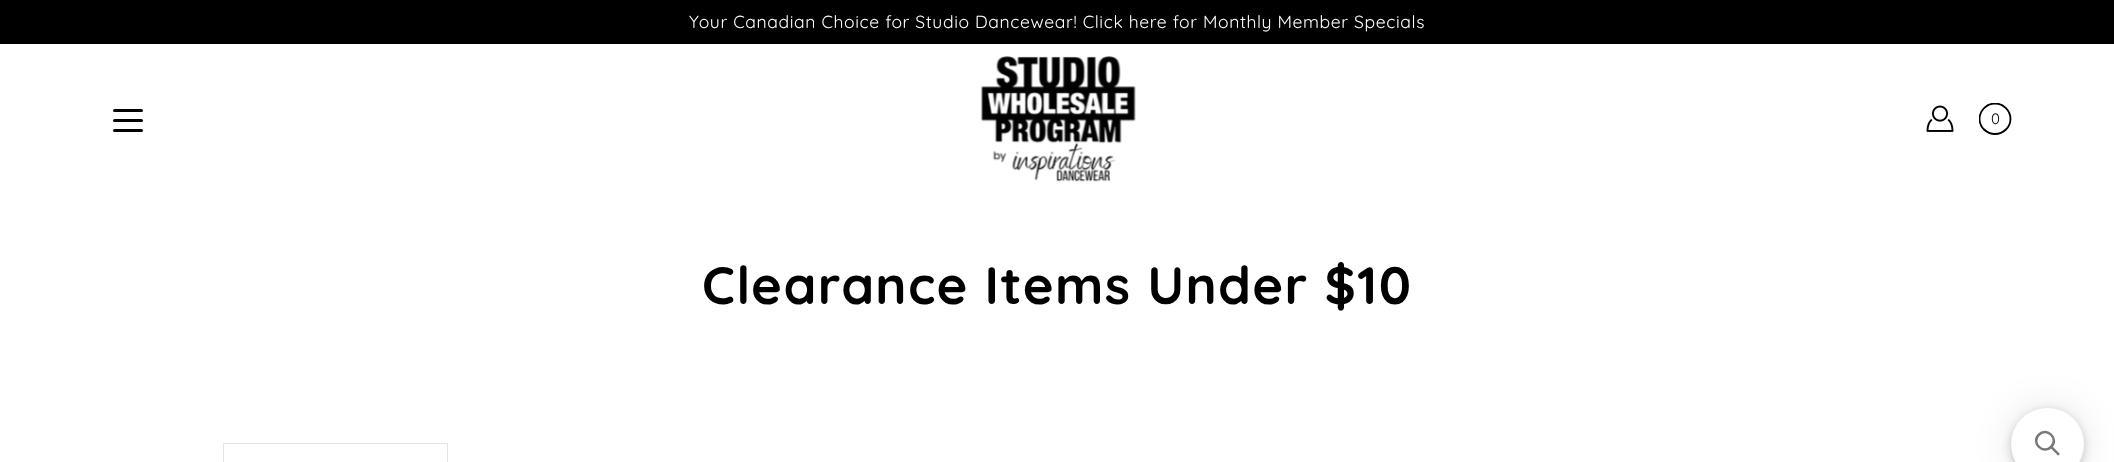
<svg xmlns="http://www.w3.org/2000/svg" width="2114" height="462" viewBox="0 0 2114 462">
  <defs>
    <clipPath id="clip1"><path d="M1979 103h34v33H1979z"/></clipPath>
  </defs>
  <rect width="100%" height="100%" fill="#fff"/>
  <path d="M0 0h2114v44H0z" fill="#000"/>
  <image x="980" y="56" width="156" height="126" href="img/1.png"/>
  <rect x="113" y="119" width="30" height="3" rx="1.5" fill="#000"/>
  <rect x="113" y="109" width="30" height="3" rx="1.5" fill="#000"/>
  <rect x="113" y="129" width="30" height="3" rx="1.5" fill="#000"/>
  <image x="1926" y="105" width="28" height="27" href="img/2.png"/>
  <g clip-path="url(#clip1)">
    <path d="M2010.5 119C2010.5 127 2003.5 134 1995 134C1986.5 134 1979.5 127 1979.5 119C1979.5 110.5 1986.5 103.5 1995 103.5C2003.5 103.5 2010.5 110.5 2010.5 119Z" fill="none" stroke="#000" stroke-width="1.8"/>
  </g>
  <path d="M223.5 443.5h224v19H223.5z" fill="none" stroke="#e4e4e4"/>
  <rect x="2011" y="413" width="73" height="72" rx="36" fill="#0000000d" filter="blur(5px)"/>
  <rect x="2011" y="410" width="73" height="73" rx="36.5" fill="#00000026" filter="blur(5px)"/>
  <rect x="2011" y="408" width="73" height="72" rx="36" fill="#0000001a" filter="blur(19px)"/>
  <rect x="2011" y="408" width="73" height="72" rx="36" fill="#fff"/>
  <path d="M2039 434.5C2047 426.5 2059.5 439 2051 447C2043 455 2030.5 442.5 2039 434.5Z" fill="none" stroke="#787878" stroke-width="2.5"/>
  <path d="M2050.5 448L2052 446L2059.5 453.5C2060 454.5 2058.5 456 2057.5 455Z" fill="#787878"/>
  <text x="689" y="28" font-family="Quicksand" font-size="17.5" letter-spacing="0.62" fill="#fff">Your Canadian Choice for Studio Dancewear! Click here for Monthly Member Specials</text>
  <text x="1991" y="124" font-family="Quicksand" font-size="15" fill="#000">0</text>
  <text x="702" y="304" font-family="Quicksand" font-size="52.5" font-weight="bold" letter-spacing="1.25" fill="#000">Clearance Items Under $10</text>
</svg>
